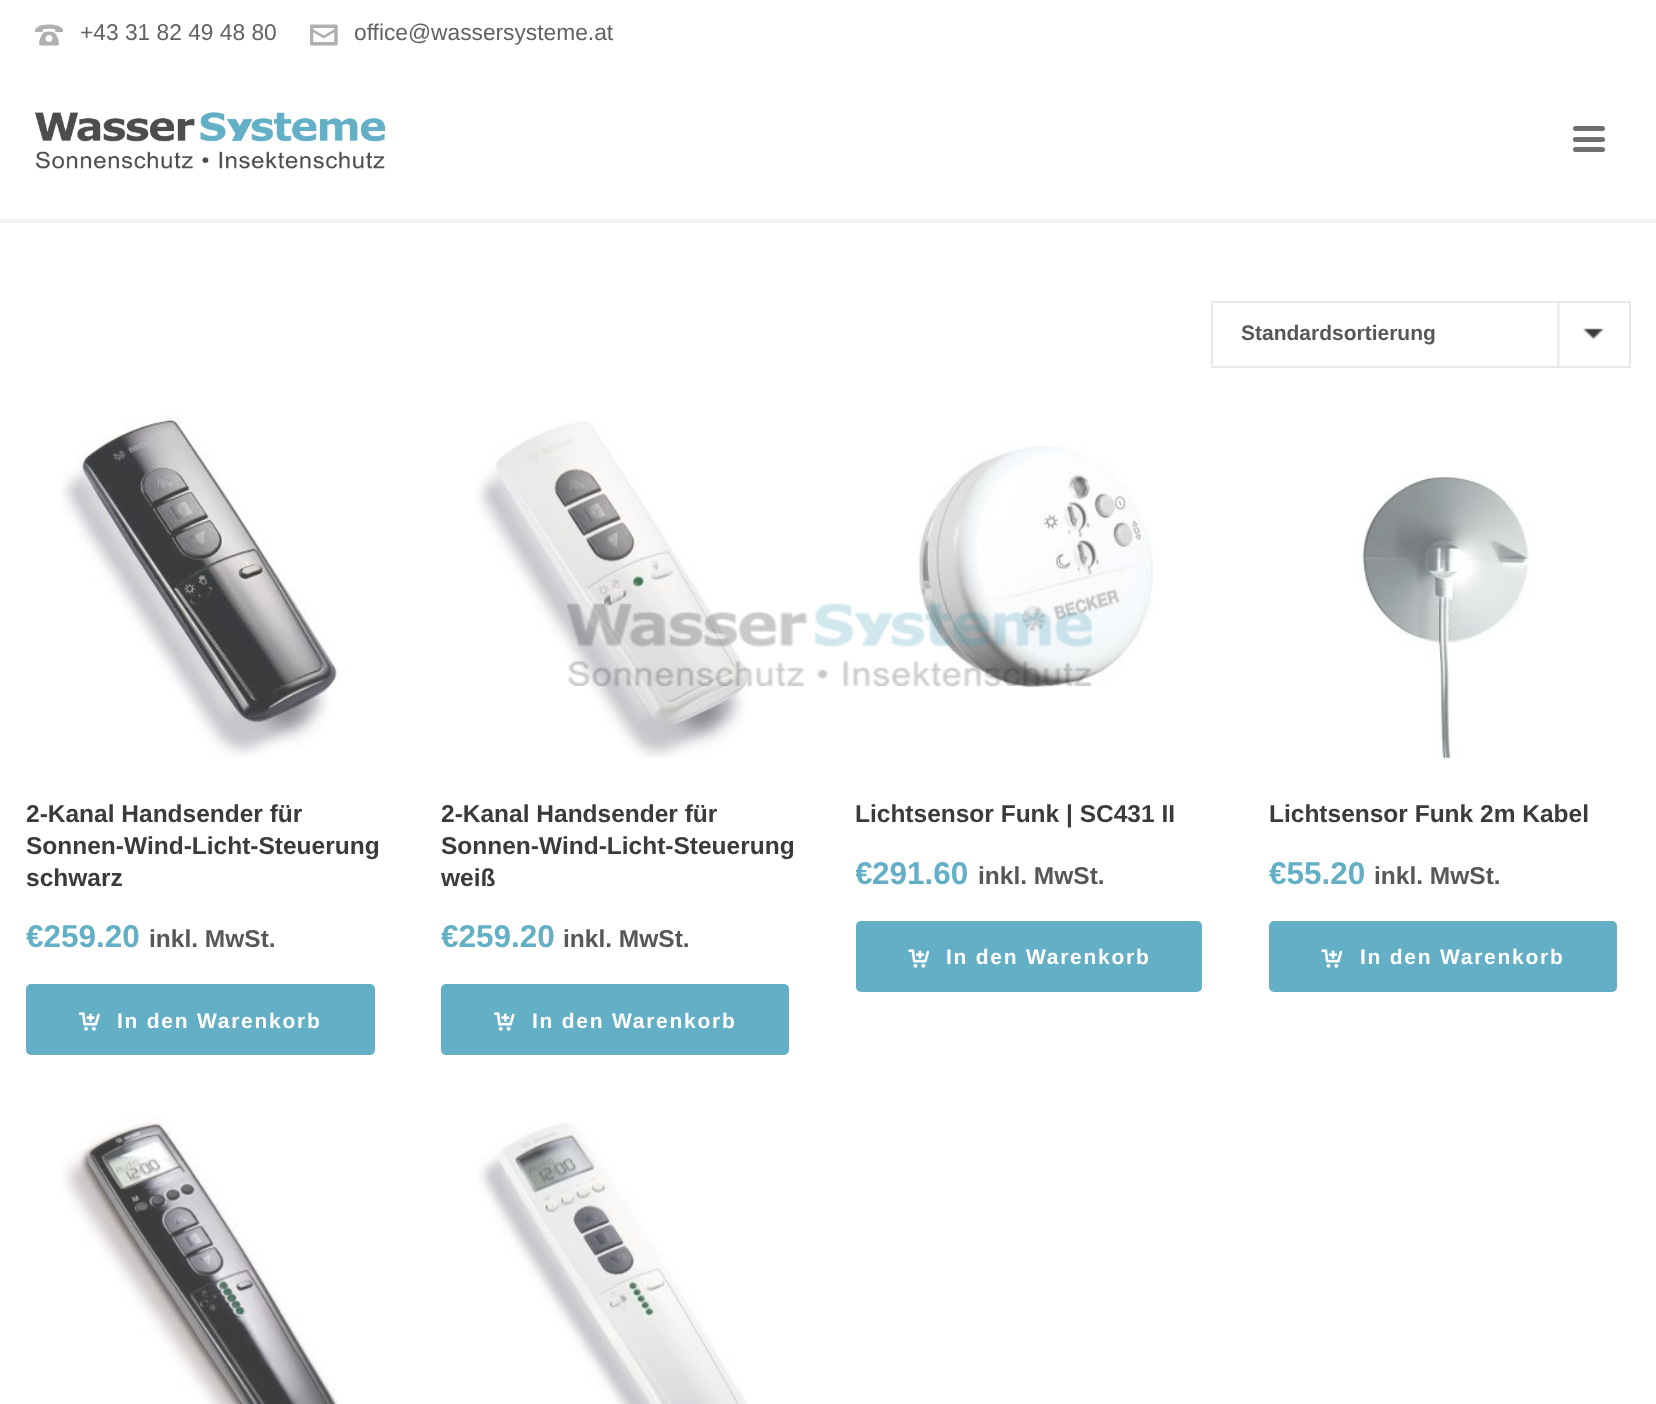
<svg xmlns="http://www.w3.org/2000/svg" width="1656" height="1404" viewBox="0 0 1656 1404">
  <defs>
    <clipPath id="clip1"><path d="M856 396h360v596H856z"/></clipPath>
  </defs>
  <rect width="100%" height="100%" fill="#fff"/>
  <path d="M0 219h1656v4H0z" fill="#f1f1f1"/>
  <image x="35" y="24" width="28" height="22" href="img/1.png"/>
  <image x="310" y="24" width="28" height="22" href="img/2.png"/>
  <image x="35" y="112" width="350" height="57" href="img/3.png"/>
  <rect x="1573" y="126" width="32" height="5" rx="2.5" fill="#6f6f6f"/>
  <rect x="1573" y="137" width="32" height="5" rx="2.5" fill="#6f6f6f"/>
  <rect x="1573" y="147" width="32" height="5" rx="2.5" fill="#6f6f6f"/>
  <image x="1557" y="303" width="47" height="63" href="img/4.png"/>
  <path d="M1212 302h418v65H1212z" fill="none" stroke="#e9e9e9" stroke-width="2"/>
  <image x="60" y="415" width="285" height="343" href="img/5.png"/>
  <rect x="26" y="984" width="349" height="71" rx="5" fill="#63afc6"/>
  <image x="79" y="1012" width="21" height="19" href="img/6.png"/>
  <image x="475" y="421" width="274" height="337" href="img/7.png"/>
  <rect x="441" y="984" width="348" height="71" rx="5" fill="#63afc6"/>
  <image x="494" y="1012" width="21" height="19" href="img/8.png"/>
  <image x="916" y="445" width="237" height="243" href="img/9.png"/>
  <rect x="856" y="921" width="346" height="71" rx="5" fill="#63afc6"/>
  <image x="908" y="949" width="21" height="19" href="img/10.png"/>
  <image x="1357" y="473" width="173" height="285" href="img/11.png"/>
  <rect x="1269" y="921" width="348" height="71" rx="5" fill="#63afc6"/>
  <image x="1321" y="949" width="21" height="19" href="img/10.png"/>
  <image x="61" y="1117" width="278" height="287" href="img/12.png"/>
  <image x="478" y="1122" width="270" height="282" href="img/13.png"/>
  <image x="566" y="603" width="526" height="83" href="img/14.png"/>
  <g font-family="Liberation Sans" font-size="22.75" fill="#626262">
    <text x="80" y="40">+43 31 82 49 48 80</text>
    <text x="354" y="40">office@wassersysteme.at</text>
  </g>
  <text x="1241" y="340" font-family="Liberation Sans" font-size="21" font-weight="bold" fill="#575757">Standardsortierung</text>
  <g font-family="Liberation Sans" font-size="24.5" font-weight="bold" fill="#3b3b3b">
    <text x="26" y="822">2-Kanal Handsender für</text>
    <text x="26" y="854">Sonnen-Wind-Licht-Steuerung</text>
    <text x="26" y="886">schwarz</text>
  </g>
  <text x="26" y="947" font-family="Liberation Sans" font-size="31.5" font-weight="bold" fill="#63afc6">€259.20</text>
  <text x="149" y="947" font-family="Liberation Sans" font-size="24.5" font-weight="bold" fill="#575757">inkl. MwSt.</text>
  <text x="117" y="1028" font-family="Liberation Sans" font-size="21" font-weight="bold" letter-spacing="1.75" fill="#fff">In den Warenkorb</text>
  <g font-family="Liberation Sans" font-size="24.5" font-weight="bold" fill="#3b3b3b">
    <text x="441" y="822">2-Kanal Handsender für</text>
    <text x="441" y="854">Sonnen-Wind-Licht-Steuerung</text>
    <text x="441" y="886">weiß</text>
  </g>
  <text x="441" y="947" font-family="Liberation Sans" font-size="31.5" font-weight="bold" fill="#63afc6">€259.20</text>
  <text x="563" y="947" font-family="Liberation Sans" font-size="24.5" font-weight="bold" fill="#575757">inkl. MwSt.</text>
  <text x="532" y="1028" font-family="Liberation Sans" font-size="21" font-weight="bold" letter-spacing="1.75" fill="#fff">In den Warenkorb</text>
  <text x="855" y="822" font-family="Liberation Sans" font-size="24.5" font-weight="bold" fill="#3b3b3b">Lichtsensor Funk | SC431 II</text>
  <g clip-path="url(#clip1)">
    <text x="855" y="884" font-family="Liberation Sans" font-size="31.5" font-weight="bold" fill="#63afc6">€</text>
  </g>
  <text x="872" y="884" font-family="Liberation Sans" font-size="31.5" font-weight="bold" fill="#63afc6">291.60</text>
  <text x="978" y="884" font-family="Liberation Sans" font-size="24.5" font-weight="bold" fill="#575757">inkl. MwSt.</text>
  <text x="946" y="964" font-family="Liberation Sans" font-size="21" font-weight="bold" letter-spacing="1.75" fill="#fff">In den Warenkorb</text>
  <text x="1269" y="822" font-family="Liberation Sans" font-size="24.5" font-weight="bold" fill="#3b3b3b">Lichtsensor Funk 2m Kabel</text>
  <text x="1269" y="884" font-family="Liberation Sans" font-size="31.5" font-weight="bold" fill="#63afc6">€55.20</text>
  <text x="1374" y="884" font-family="Liberation Sans" font-size="24.5" font-weight="bold" fill="#575757">inkl. MwSt.</text>
  <text x="1360" y="964" font-family="Liberation Sans" font-size="21" font-weight="bold" letter-spacing="1.75" fill="#fff">In den Warenkorb</text>
</svg>
